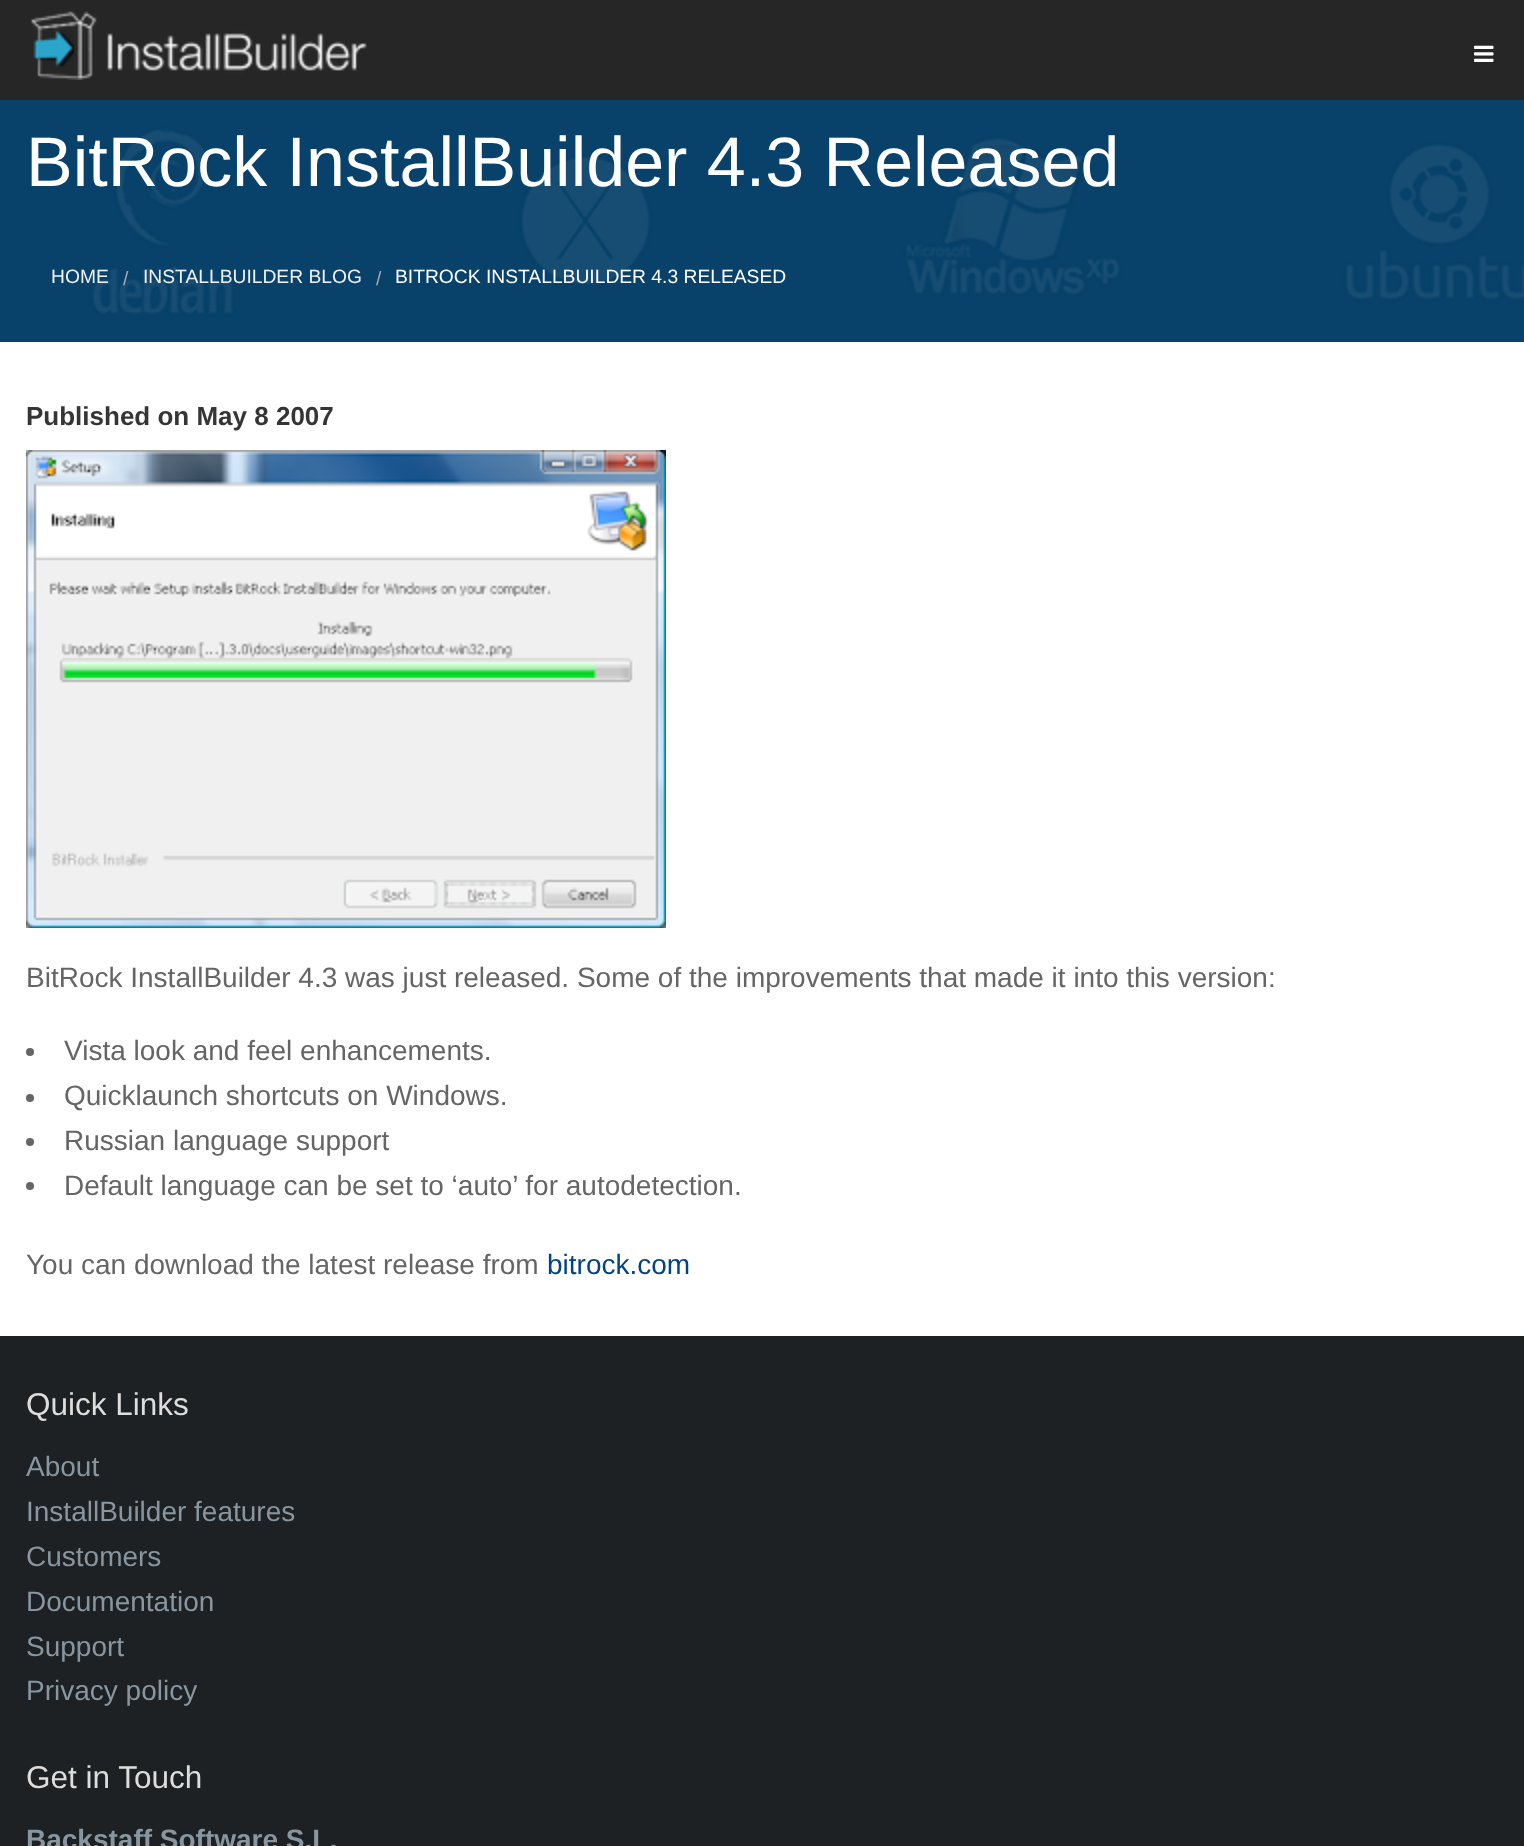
<svg xmlns="http://www.w3.org/2000/svg" width="1524" height="1846" viewBox="0 0 1524 1846">
  <rect width="100%" height="100%" fill="#fff"/>
  <path d="M0 0h1524v100H0z" fill="#262626"/>
  <image x="30" y="11" width="337" height="69" href="img/1.png"/>
  <image x="1474" y="45" width="20" height="17" href="img/2.png"/>
  <image x="0" y="100" width="1524" height="242" href="img/3.png"/>
  <image x="26" y="450" width="640" height="478" href="img/4.png"/>
  <circle cx="30" cy="1052" r="4" fill="#656565"/>
  <circle cx="30" cy="1098" r="4" fill="#656565"/>
  <circle cx="30" cy="1142" r="4" fill="#656565"/>
  <circle cx="30" cy="1186" r="4" fill="#656565"/>
  <path d="M0 1336h1524v510H0z" fill="#1d2123"/>
  <text x="26" y="186" font-family="Liberation Sans" font-size="70" fill="#fff">BitRock InstallBuilder 4.3 Released</text>
  <text x="51" y="283" font-family="Liberation Sans" font-size="19.25" fill="#f0f0f0">HOME</text>
  <text x="123" y="285" font-family="Liberation Sans" font-size="19.25" fill="#aaa">/</text>
  <text x="143" y="283" font-family="Liberation Sans" font-size="19.25" fill="#f0f0f0">INSTALLBUILDER BLOG</text>
  <text x="376" y="285" font-family="Liberation Sans" font-size="19.25" fill="#aaa">/</text>
  <text x="395" y="283" font-family="Liberation Sans" font-size="19.25" fill="#fff">BITROCK INSTALLBUILDER 4.3 RELEASED</text>
  <text x="26" y="425" font-family="Liberation Sans" font-size="26" font-weight="bold" fill="#353535">Published on May 8 2007</text>
  <g font-family="Liberation Sans" font-size="28" fill="#656565">
    <text x="26" y="987">BitRock InstallBuilder 4.3 was just released. Some of the improvements that made it into this version:</text>
    <text x="64" y="1060">Vista look and feel enhancements.</text>
    <text x="64" y="1105">Quicklaunch shortcuts on Windows.</text>
    <text x="64" y="1150">Russian language support</text>
    <text x="64" y="1195">Default language can be set to ‘auto’ for autodetection.</text>
    <text x="26" y="1274">You can download the latest release from</text>
  </g>
  <text x="547" y="1274" font-family="Liberation Sans" font-size="28" fill="#034381">bitrock.com</text>
  <text x="26" y="1415" font-family="Liberation Sans" font-size="31.5" fill="#ddd">Quick Links</text>
  <g font-family="Liberation Sans" font-size="28" fill="#8996a0">
    <text x="26" y="1476">About</text>
    <text x="26" y="1521">InstallBuilder features</text>
    <text x="26" y="1566">Customers</text>
    <text x="26" y="1611">Documentation</text>
    <text x="26" y="1656">Support</text>
    <text x="26" y="1700">Privacy policy</text>
  </g>
  <text x="26" y="1788" font-family="Liberation Sans" font-size="31.5" fill="#ddd">Get in Touch</text>
  <text x="26" y="1849" font-family="Liberation Sans" font-size="28" font-weight="bold" fill="#8996a0">Backstaff Software S.L.</text>
</svg>
